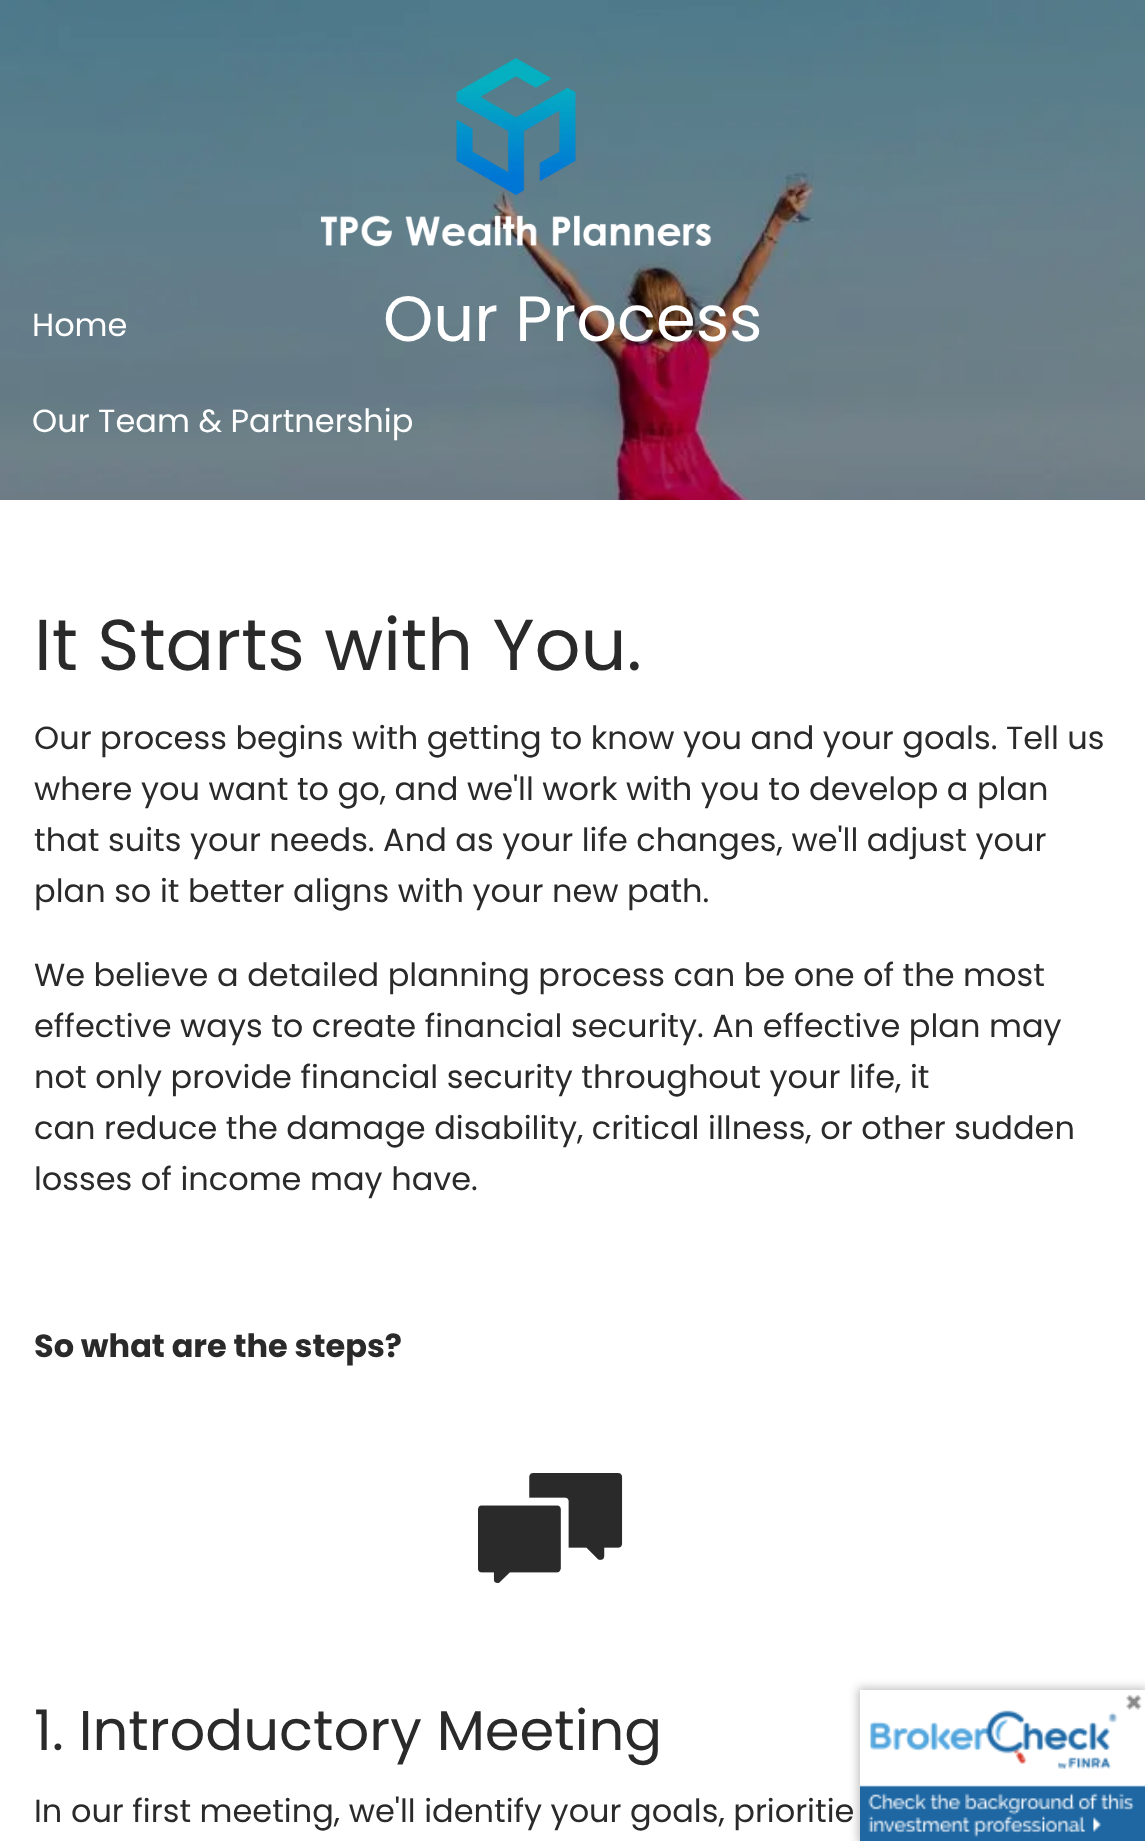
<svg xmlns="http://www.w3.org/2000/svg" width="1145" height="1841" viewBox="0 0 1145 1841">
  <defs>
    <clipPath id="clip1"><path d="M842 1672H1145V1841H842ZM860 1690H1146V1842H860Z" clip-rule="evenodd"/></clipPath>
  </defs>
  <rect width="100%" height="100%" fill="#fff"/>
  <image x="0" y="0" width="1145" height="500" href="img/2.png"/>
  <image x="320" y="58" width="392" height="189" href="img/1.png"/>
  <image x="478" y="1473" width="145" height="110" href="img/3.png"/>
  <g clip-path="url(#clip1)">
    <path d="M858 1688h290v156H858z" fill="#00000040" filter="blur(5px)"/>
  </g>
  <image x="860" y="1694" width="285" height="147" href="img/4.png"/>
  <g font-family="Poppins" font-size="32" fill="#fff">
    <text x="32" y="336">Home</text>
    <text x="32" y="432">Our Team &amp; Partnership</text>
  </g>
  <text x="383" y="341" font-family="Poppins" font-size="64" fill="#fff">Our Process</text>
  <text x="34" y="670" font-family="Poppins" font-size="72" fill="#2a2a2a">It Starts with You.</text>
  <g font-family="Poppins" font-size="32" fill="#2a2a2a">
    <text x="34" y="749">Our process begins with getting to know you and your goals. Tell us</text>
    <text x="34" y="800">where you want to go, and we'll work with you to develop a plan</text>
    <text x="34" y="851">that suits your needs. And as your life changes, we'll adjust your</text>
    <text x="34" y="902">plan so it better aligns with your new path.</text>
    <text x="34" y="986">We believe a detailed planning process can be one of the most</text>
    <text x="34" y="1037">effective ways to create financial security. An effective plan may</text>
    <text x="34" y="1088">not only provide financial security throughout your life, it</text>
    <text x="34" y="1139">can reduce the damage disability, critical illness, or other sudden</text>
    <text x="34" y="1190">losses of income may have.</text>
  </g>
  <text x="34" y="1357" font-family="Poppins" font-size="32" font-weight="bold" fill="#2a2a2a">So what are the steps?</text>
  <text x="34" y="1750" font-family="Poppins" font-size="56" fill="#2a2a2a">1. Introductory Meeting</text>
  <text x="34" y="1822" font-family="Poppins" font-size="32" fill="#2a2a2a">In our first meeting, we'll identify your goals, prioritie</text>
</svg>
